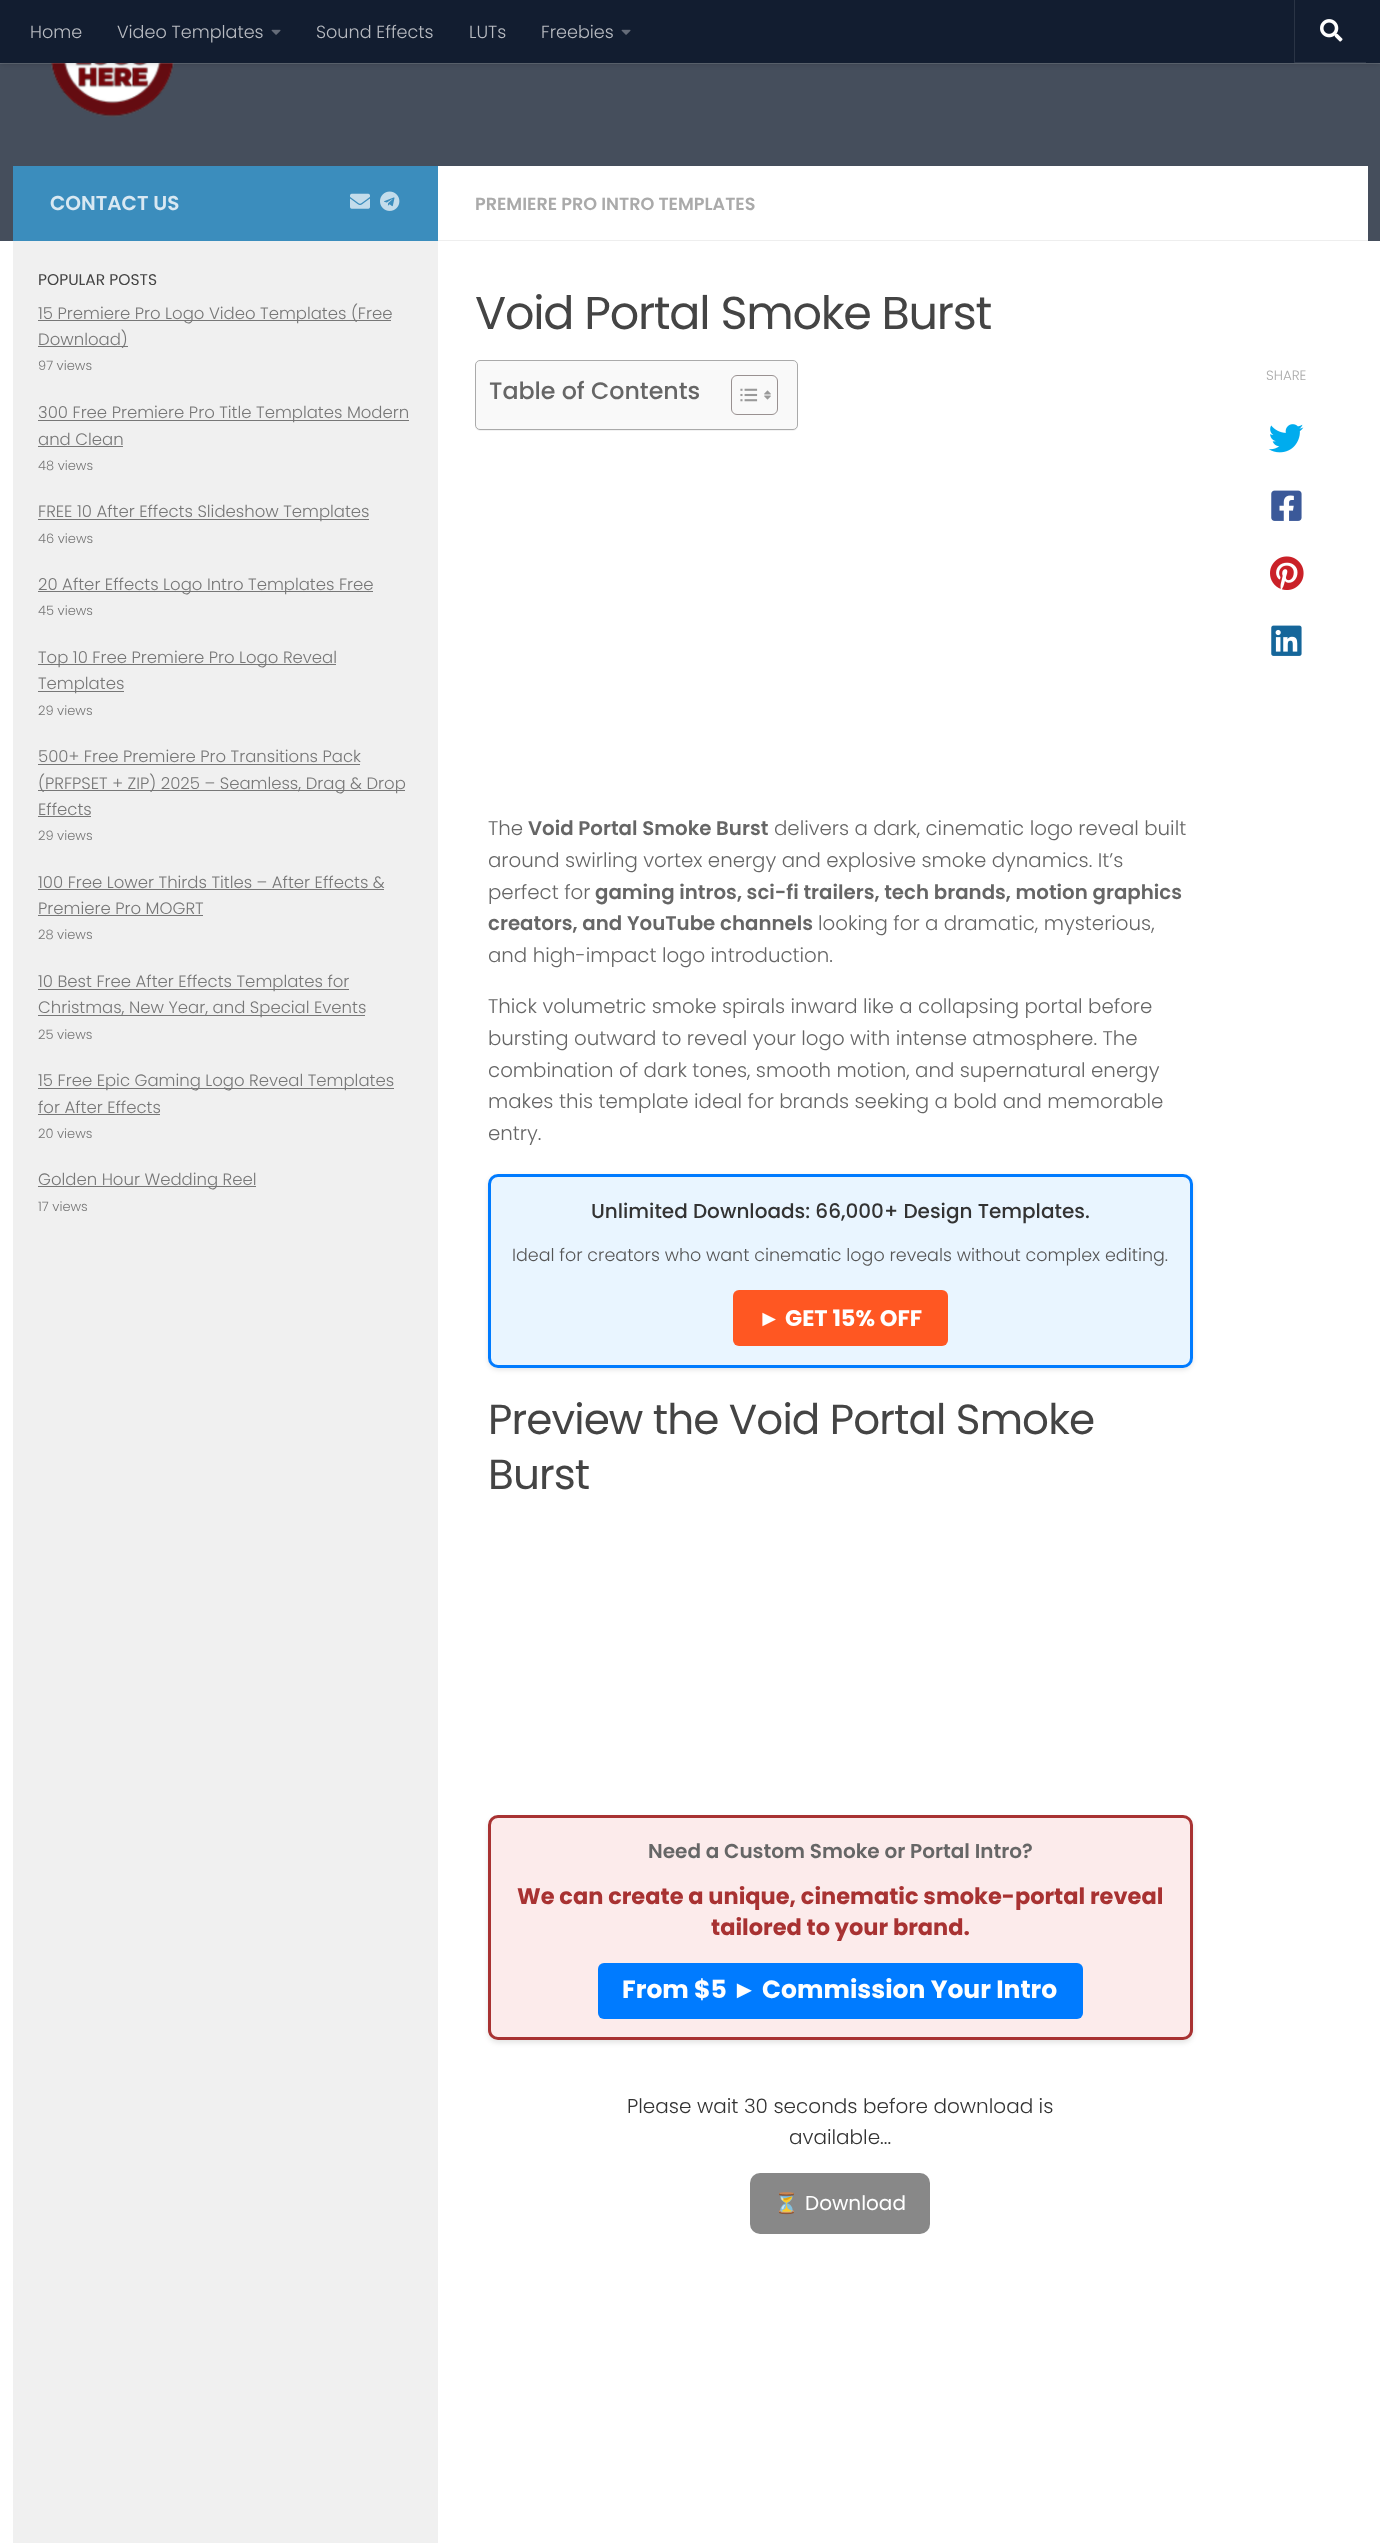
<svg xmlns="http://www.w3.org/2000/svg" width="1380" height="2543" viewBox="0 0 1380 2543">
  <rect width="100%" height="100%" fill="#fff"/>
  <path d="M0 63h1380v178H0z" fill="#454e5c"/>
  <image x="50" y="63" width="125" height="54" href="img/3.png"/>
  <path d="M0 63h1380v1H0z" fill="#ffffff26"/>
  <path d="M0 0h1380v63H0z" fill="#00000033" filter="blur(3px)"/>
  <path d="M0 0h1380v63H0z" fill="#121d30"/>
  <image x="271" y="29" width="10" height="6" href="img/1.png"/>
  <image x="621" y="29" width="10" height="6" href="img/1.png"/>
  <path d="M1294 0V63H1366V62H1295V0Z" fill="#2a3445"/>
  <image x="1320" y="19" width="23" height="23" href="img/2.png"/>
  <path d="M438 166h930v75H438z" fill="#fff"/>
  <path d="M13 166h425v75H13z" fill="#3b8dbd"/>
  <image x="350" y="193" width="20" height="16" href="img/4.png"/>
  <image x="380" y="191" width="20" height="20" href="img/5.png"/>
  <path d="M13 241h425v2302H13z" fill="#f0f0f0"/>
  <path d="M38 320h353v1H38z" fill="#777"/>
  <path d="M38 346h90v1H38z" fill="#777"/>
  <path d="M38 420h371v1H38z" fill="#777"/>
  <path d="M38 446h85v1H38z" fill="#777"/>
  <path d="M38 519h331v1H38z" fill="#777"/>
  <path d="M38 591h335v1H38z" fill="#777"/>
  <path d="M38 664h298v1H38z" fill="#777"/>
  <path d="M38 691h86v1H38z" fill="#777"/>
  <path d="M38 764h322v1H38z" fill="#777"/>
  <path d="M38 790h367v1H38z" fill="#777"/>
  <path d="M38 816h53v1H38z" fill="#777"/>
  <path d="M38 889h346v1H38z" fill="#777"/>
  <path d="M38 915h165v1H38z" fill="#777"/>
  <path d="M38 989h311v1H38z" fill="#777"/>
  <path d="M38 1015h327v1H38z" fill="#777"/>
  <path d="M38 1088h356v1H38z" fill="#777"/>
  <path d="M38 1114h122v1H38z" fill="#777"/>
  <path d="M38 1186h218v1H38z" fill="#777"/>
  <path d="M438 240h930v1H438z" fill="#eee"/>
  <image x="1268" y="424" width="36" height="29" href="img/6.png"/>
  <image x="1271" y="490" width="31" height="31" href="img/7.png"/>
  <image x="1270" y="556" width="34" height="34" href="img/8.png"/>
  <image x="1271" y="625" width="31" height="31" href="img/9.png"/>
  <rect x="475" y="361" width="323" height="70" rx="5" fill="#0000000d" filter="blur(0.5px)"/>
  <rect x="475.5" y="360.5" width="322" height="69" rx="4.5" fill="#f9f9f9" stroke="#aaa"/>
  <rect x="731.5" y="375.5" width="46" height="39" rx="5.5" fill="none" stroke="#999191"/>
  <image x="740" y="388" width="18" height="14" href="img/10.png"/>
  <image x="764" y="390" width="7" height="10" href="img/11.png"/>
  <rect x="488" y="1176" width="705" height="194" rx="10" fill="#0000001a" filter="blur(2.5px)"/>
  <rect x="489.5" y="1175.5" width="702" height="191" rx="8.5" fill="#e9f5ff" stroke="#007bff" stroke-width="3"/>
  <rect x="733" y="1290" width="215" height="56" rx="6" fill="#ff5722"/>
  <rect x="488" y="1818" width="705" height="225" rx="10" fill="#0000001a" filter="blur(2.5px)"/>
  <rect x="489.5" y="1816.5" width="702" height="222" rx="8.5" fill="#fcebeb" stroke="#a83232" stroke-width="3"/>
  <rect x="598" y="1963" width="485" height="56" rx="6" fill="#007bff"/>
  <rect x="750" y="2173" width="180" height="61" rx="10" fill="#888"/>
  <g font-family="Poppins" font-size="17.6" font-weight="300" fill="#b8bbc1">
    <text x="30" y="38">Home</text>
    <text x="117" y="38">Video Templates</text>
    <text x="316" y="38">Sound Effects</text>
    <text x="469" y="38">LUTs</text>
    <text x="541" y="38">Freebies</text>
  </g>
  <text x="50" y="210" font-family="Poppins" font-size="20" font-weight="600" fill="#d8e8f2">CONTACT US</text>
  <text x="38" y="285" font-family="Poppins" font-size="15.5" fill="#444">POPULAR POSTS</text>
  <g font-family="Poppins" font-size="16.5" font-weight="300" fill="#777">
    <text x="38" y="319">15 Premiere Pro Logo Video Templates (Free</text>
    <text x="38" y="345">Download)</text>
  </g>
  <text x="38" y="370" font-family="Poppins" font-size="13" font-weight="300" fill="#777">97 views</text>
  <g font-family="Poppins" font-size="16.5" font-weight="300" fill="#777">
    <text x="38" y="418">300 Free Premiere Pro Title Templates Modern</text>
    <text x="38" y="445">and Clean</text>
  </g>
  <text x="38" y="470" font-family="Poppins" font-size="13" font-weight="300" fill="#777">48 views</text>
  <text x="38" y="517" font-family="Poppins" font-size="16.5" font-weight="300" fill="#777">FREE 10 After Effects Slideshow Templates</text>
  <text x="38" y="543" font-family="Poppins" font-size="13" font-weight="300" fill="#777">46 views</text>
  <text x="38" y="590" font-family="Poppins" font-size="16.5" font-weight="300" fill="#777">20 After Effects Logo Intro Templates Free</text>
  <text x="38" y="615" font-family="Poppins" font-size="13" font-weight="300" fill="#777">45 views</text>
  <g font-family="Poppins" font-size="16.5" font-weight="300" fill="#777">
    <text x="38" y="663">Top 10 Free Premiere Pro Logo Reveal</text>
    <text x="38" y="689">Templates</text>
  </g>
  <text x="38" y="715" font-family="Poppins" font-size="13" font-weight="300" fill="#777">29 views</text>
  <g font-family="Poppins" font-size="16.5" font-weight="300" fill="#777">
    <text x="38" y="762">500+ Free Premiere Pro Transitions Pack</text>
    <text x="38" y="789">(PRFPSET + ZIP) 2025 – Seamless, Drag &amp; Drop</text>
    <text x="38" y="815">Effects</text>
  </g>
  <text x="38" y="840" font-family="Poppins" font-size="13" font-weight="300" fill="#777">29 views</text>
  <g font-family="Poppins" font-size="16.5" font-weight="300" fill="#777">
    <text x="38" y="888">100 Free Lower Thirds Titles – After Effects &amp;</text>
    <text x="38" y="914">Premiere Pro MOGRT</text>
  </g>
  <text x="38" y="939" font-family="Poppins" font-size="13" font-weight="300" fill="#777">28 views</text>
  <g font-family="Poppins" font-size="16.5" font-weight="300" fill="#777">
    <text x="38" y="987">10 Best Free After Effects Templates for</text>
    <text x="38" y="1013">Christmas, New Year, and Special Events</text>
  </g>
  <text x="38" y="1039" font-family="Poppins" font-size="13" font-weight="300" fill="#777">25 views</text>
  <g font-family="Poppins" font-size="16.5" font-weight="300" fill="#777">
    <text x="38" y="1086">15 Free Epic Gaming Logo Reveal Templates</text>
    <text x="38" y="1113">for After Effects</text>
  </g>
  <text x="38" y="1138" font-family="Poppins" font-size="13" font-weight="300" fill="#777">20 views</text>
  <text x="38" y="1185" font-family="Poppins" font-size="16.5" font-weight="300" fill="#777">Golden Hour Wedding Reel</text>
  <text x="38" y="1211" font-family="Poppins" font-size="13" font-weight="300" fill="#777">17 views</text>
  <text x="475" y="210" font-family="Poppins" font-size="17.6" font-weight="600" fill="#aaa">PREMIERE PRO INTRO TEMPLATES</text>
  <text x="475" y="329" font-family="Poppins" font-size="46.1" letter-spacing="-1.25" fill="#444">Void Portal Smoke Burst</text>
  <text x="1266" y="380" font-family="Poppins" font-size="13.5" font-weight="300" fill="#aaa">SHARE</text>
  <text x="489" y="399" font-family="Poppins" font-size="23.75" font-weight="500" fill="#666">Table of Contents</text>
  <text x="488" y="835" font-family="Poppins" font-size="19.8" font-weight="300" fill="#666">The</text>
  <text x="528" y="835" font-family="Poppins" font-size="19.8" font-weight="600" fill="#666">Void Portal Smoke Burst</text>
  <g font-family="Poppins" font-size="19.8" font-weight="300" fill="#666">
    <text x="774" y="835">delivers a dark, cinematic logo reveal built</text>
    <text x="488" y="867">around swirling vortex energy and explosive smoke dynamics. It’s</text>
    <text x="488" y="899">perfect for</text>
  </g>
  <g font-family="Poppins" font-size="19.8" font-weight="600" fill="#666">
    <text x="595" y="899">gaming intros, sci-fi trailers, tech brands, motion graphics</text>
    <text x="488" y="930">creators, and YouTube channels</text>
  </g>
  <g font-family="Poppins" font-size="19.8" font-weight="300" fill="#666">
    <text x="818" y="930">looking for a dramatic, mysterious,</text>
    <text x="488" y="962">and high-impact logo introduction.</text>
    <text x="488" y="1013">Thick volumetric smoke spirals inward like a collapsing portal before</text>
    <text x="488" y="1045">bursting outward to reveal your logo with intense atmosphere. The</text>
    <text x="488" y="1077">combination of dark tones, smooth motion, and supernatural energy</text>
    <text x="488" y="1108">makes this template ideal for brands seeking a bold and memorable</text>
    <text x="488" y="1140">entry.</text>
  </g>
  <text x="591" y="1218" font-family="Poppins" font-size="20" font-weight="500" fill="#333">Unlimited Downloads: 66,000+ Design Templates.</text>
  <text x="512" y="1261" font-family="Poppins" font-size="17.5" font-weight="300" fill="#555">Ideal for creators who want cinematic logo reveals without complex editing.</text>
  <text x="758" y="1326" font-family="Liberation Sans" font-size="22.5" font-weight="bold" fill="#fff">►</text>
  <text x="785" y="1326" font-family="Poppins" font-size="22.5" font-weight="bold" fill="#fff">GET 15% OFF</text>
  <g font-family="Poppins" font-size="42.1" letter-spacing="-0.9" fill="#444">
    <text x="488" y="1434">Preview the Void Portal Smoke</text>
    <text x="488" y="1489">Burst</text>
  </g>
  <text x="648" y="1858" font-family="Poppins" font-size="20" font-weight="600" fill="#666">Need a Custom Smoke or Portal Intro?</text>
  <g font-family="Poppins" font-size="22.5" font-weight="bold" fill="#a83232">
    <text x="517" y="1904">We can create a unique, cinematic smoke-portal reveal</text>
    <text x="711" y="1935">tailored to your brand.</text>
  </g>
  <text x="622" y="1998" font-family="Poppins" font-size="25" font-weight="bold" fill="#fff">From $5</text>
  <text x="732" y="1998" font-family="Liberation Sans" font-size="25" font-weight="bold" fill="#fff">►</text>
  <text x="762" y="1998" font-family="Poppins" font-size="25" font-weight="bold" fill="#fff">Commission Your Intro</text>
  <g font-family="Poppins" font-size="20" font-weight="300" fill="#333">
    <text x="627" y="2113">Please wait 30 seconds before download is</text>
    <text x="789" y="2144">available...</text>
  </g>
  <text x="774" y="2210" font-family="Noto Color Emoji" font-size="20" fill="#fff">⏳</text>
  <text x="805" y="2210" font-family="Poppins" font-size="20" fill="#fff">Download</text>
</svg>
